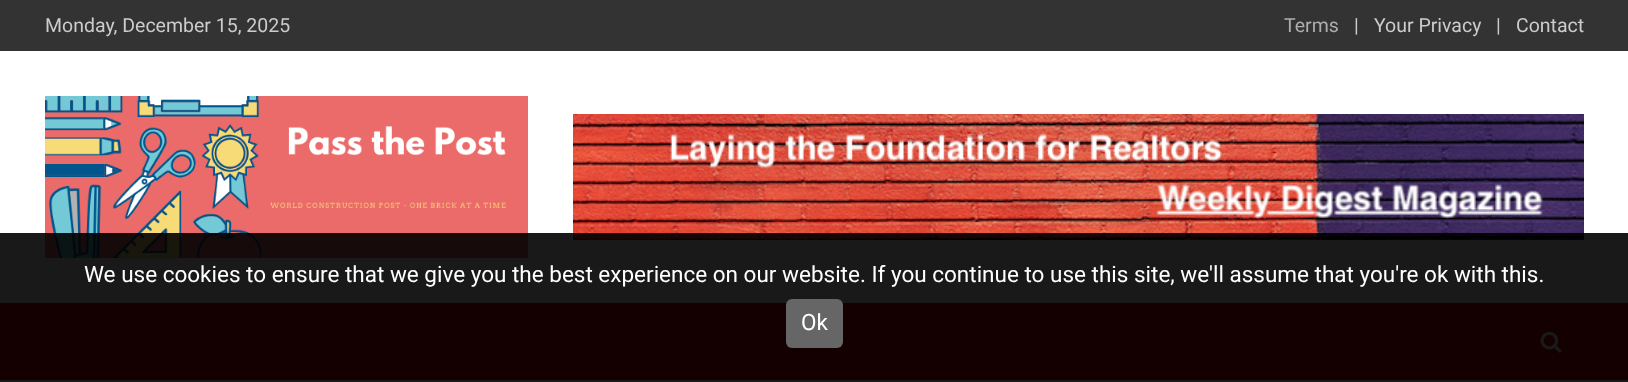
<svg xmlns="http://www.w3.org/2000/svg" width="1628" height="382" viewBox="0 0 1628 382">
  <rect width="100%" height="100%" fill="#fff"/>
  <path d="M0 0h1628v51H0z" fill="#333"/>
  <image x="45" y="96" width="483" height="162" href="img/1.png"/>
  <image x="573" y="114" width="1011" height="126" href="img/2.png"/>
  <path d="M0 303h1628v77H0z" fill="#c80000"/>
  <image x="1540" y="331" width="22" height="22" href="img/3.png"/>
  <path d="M0 233h1628v149H0z" fill="#000000e6"/>
  <rect x="786" y="299" width="57" height="49" rx="6" fill="#666"/>
  <text x="45" y="32" font-family="Roboto" font-size="19.5" fill="#ccc">Monday, December 15, 2025</text>
  <text x="1284" y="32" font-family="Roboto" font-size="19.5" fill="#adadad">Terms</text>
  <g font-family="Roboto" font-size="19.5" fill="#ccc">
    <text x="1354" y="32">|</text>
    <text x="1374" y="32">Your Privacy</text>
    <text x="1496" y="32">|</text>
    <text x="1516" y="32">Contact</text>
  </g>
  <g font-family="Roboto" font-size="22.5" fill="#fff">
    <text x="84" y="282">We use cookies to ensure that we give you the best experience on our website. If you continue to use this site, we'll assume that you're ok with this.</text>
    <text x="801" y="330">Ok</text>
  </g>
</svg>
